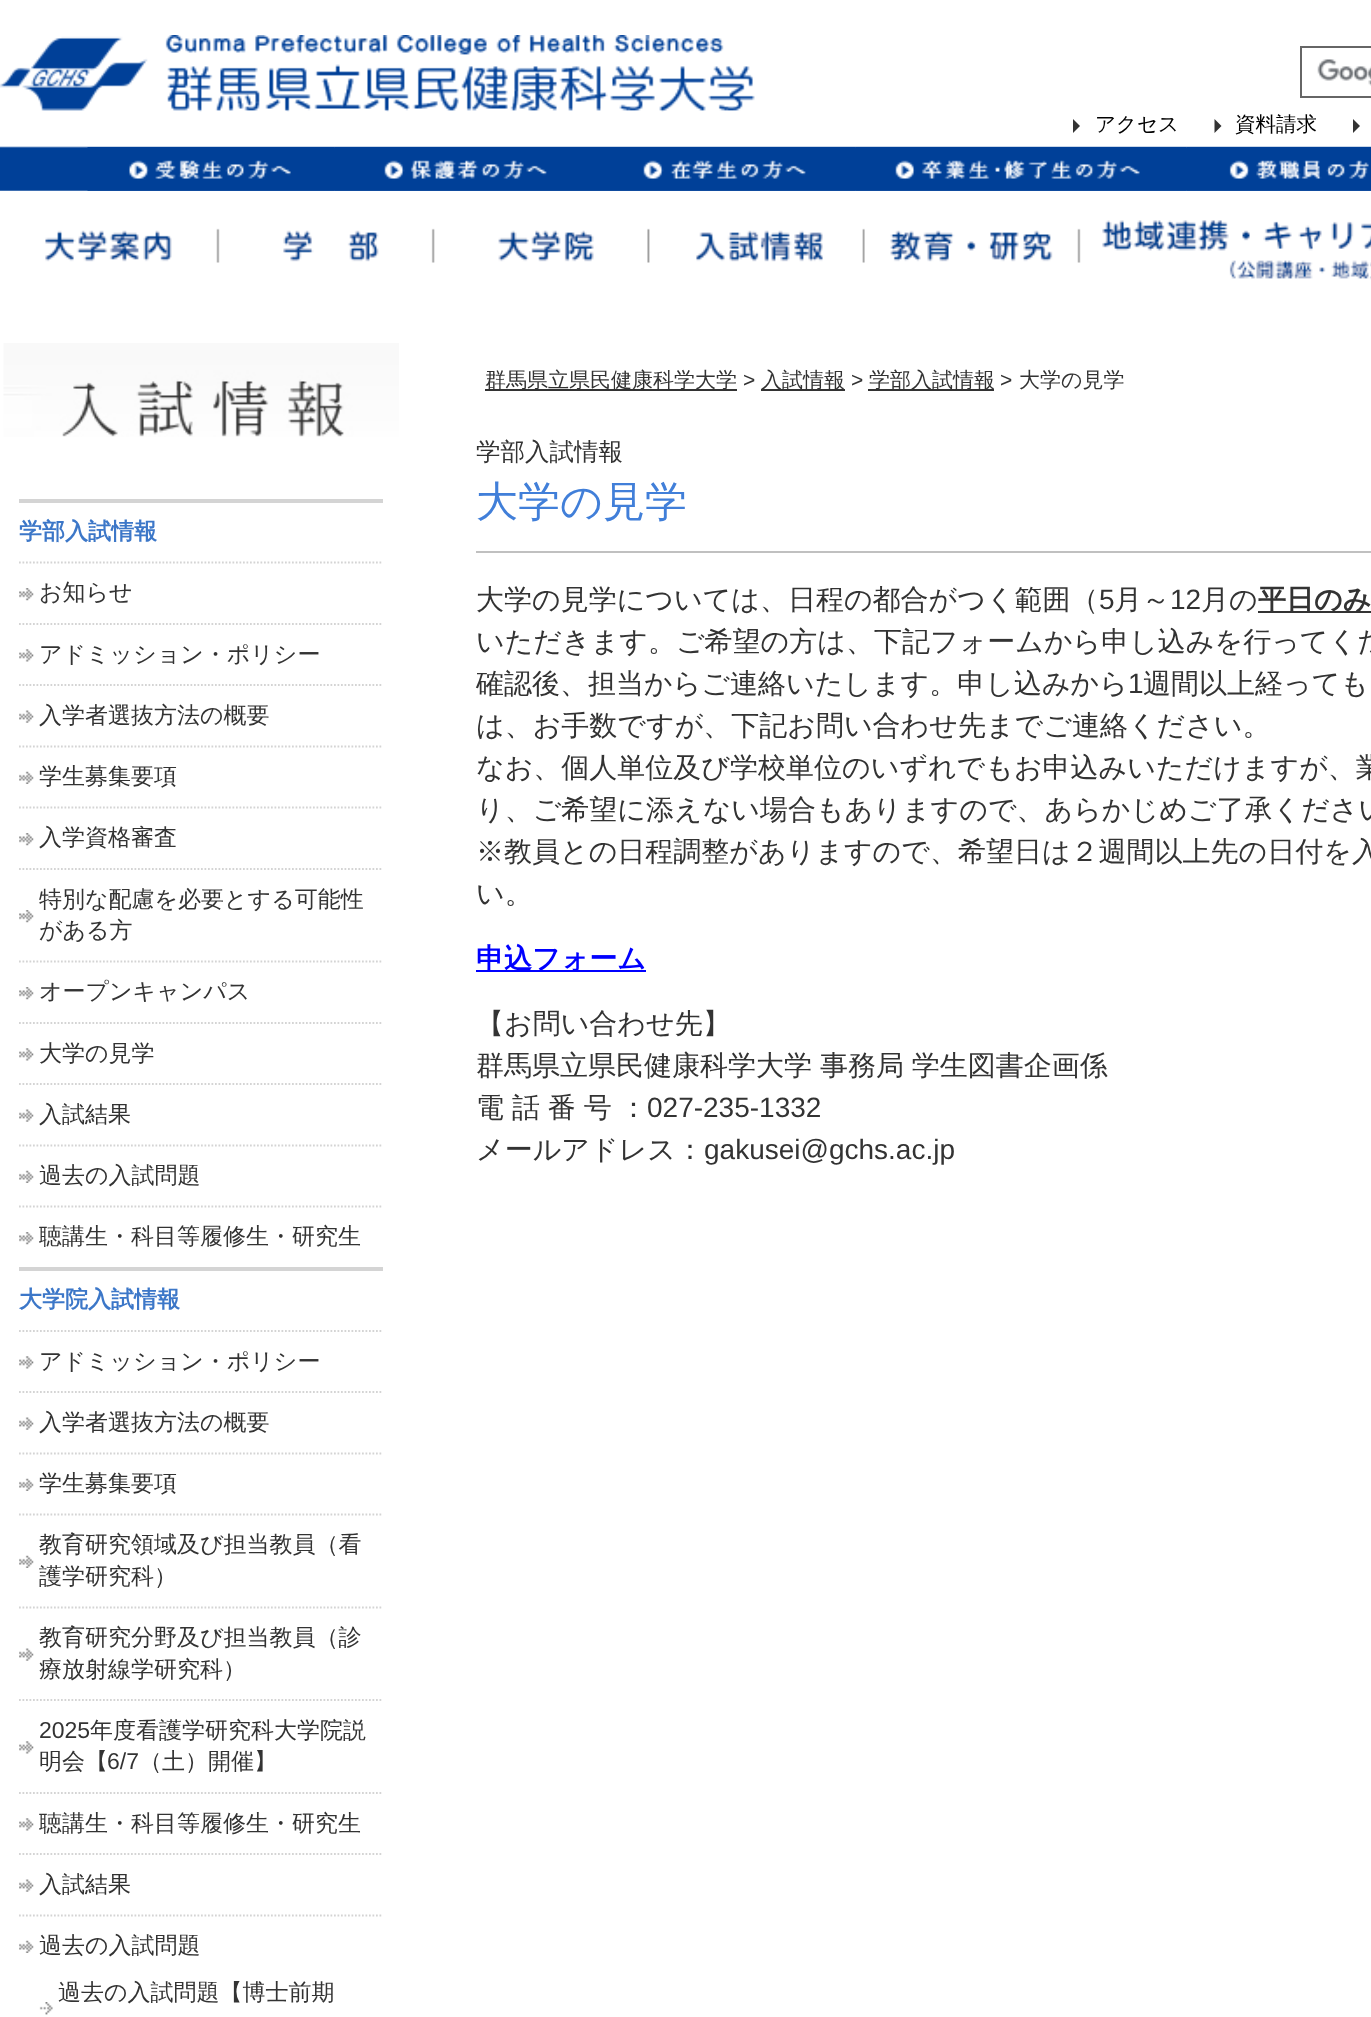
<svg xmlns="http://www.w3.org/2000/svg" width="1371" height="2017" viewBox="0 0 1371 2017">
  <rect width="100%" height="100%" fill="#fff"/>
  <image x="0" y="146" width="1371" height="45" href="img/1.png"/>
  <image x="0" y="35" width="755" height="77" href="img/2.png"/>
  <path d="M1301 47h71v50H1301z" fill="none" stroke="#666" stroke-width="2"/>
  <image x="1317" y="59" width="54" height="27" href="img/3.png"/>
  <path d="M1073 133V119L1080 126Z" fill="#333"/>
  <path d="M1214.5 133V119L1221.5 126Z" fill="#333"/>
  <path d="M1353 133V119L1360 126Z" fill="#333"/>
  <image x="87" y="147" width="248" height="44" href="img/4.png"/>
  <image x="334" y="147" width="261" height="44" href="img/5.png"/>
  <image x="595" y="147" width="261" height="44" href="img/6.png"/>
  <image x="855" y="147" width="332" height="44" href="img/7.png"/>
  <image x="1186" y="147" width="185" height="44" href="img/8.png"/>
  <image x="45" y="230" width="127" height="32" href="img/9.png"/>
  <image x="216" y="228" width="163" height="35" href="img/10.png"/>
  <image x="431" y="228" width="163" height="35" href="img/11.png"/>
  <image x="647" y="228" width="176" height="35" href="img/12.png"/>
  <image x="862" y="228" width="191" height="35" href="img/13.png"/>
  <image x="1077" y="220" width="294" height="60" href="img/14.png"/>
  <image x="3" y="343" width="396" height="94" href="img/15.png"/>
  <path d="M19 499h364v4H19z" fill="#d4d4d4"/>
  <path d="M19 562.5H383" fill="none" stroke="#d4d4d4" stroke-width="1.8" stroke-dasharray="1.75 1.75"/>
  <image x="19" y="588" width="15" height="13" href="img/16.png"/>
  <path d="M19 624H383" fill="none" stroke="#d4d4d4" stroke-width="1.8" stroke-dasharray="1.75 1.75"/>
  <image x="19" y="649" width="15" height="13" href="img/17.png"/>
  <path d="M19 685H383" fill="none" stroke="#d4d4d4" stroke-width="1.8" stroke-dasharray="1.75 1.75"/>
  <image x="19" y="710" width="15" height="13" href="img/18.png"/>
  <path d="M19 746.5H383" fill="none" stroke="#d4d4d4" stroke-width="1.8" stroke-dasharray="1.75 1.75"/>
  <image x="19" y="771" width="15" height="13" href="img/19.png"/>
  <path d="M19 807.5H383" fill="none" stroke="#d4d4d4" stroke-width="1.8" stroke-dasharray="1.75 1.75"/>
  <image x="19" y="833" width="15" height="13" href="img/16.png"/>
  <path d="M19 869H383" fill="none" stroke="#d4d4d4" stroke-width="1.8" stroke-dasharray="1.75 1.75"/>
  <image x="19" y="910" width="15" height="13" href="img/16.png"/>
  <path d="M19 961.5H383" fill="none" stroke="#d4d4d4" stroke-width="1.8" stroke-dasharray="1.75 1.75"/>
  <image x="19" y="987" width="15" height="13" href="img/16.png"/>
  <path d="M19 1023H383" fill="none" stroke="#d4d4d4" stroke-width="1.8" stroke-dasharray="1.75 1.75"/>
  <image x="19" y="1048" width="15" height="13" href="img/17.png"/>
  <path d="M19 1084H383" fill="none" stroke="#d4d4d4" stroke-width="1.8" stroke-dasharray="1.75 1.75"/>
  <image x="19" y="1109" width="15" height="13" href="img/18.png"/>
  <path d="M19 1145.5H383" fill="none" stroke="#d4d4d4" stroke-width="1.8" stroke-dasharray="1.75 1.75"/>
  <image x="19" y="1170" width="15" height="13" href="img/19.png"/>
  <path d="M19 1206.5H383" fill="none" stroke="#d4d4d4" stroke-width="1.8" stroke-dasharray="1.75 1.75"/>
  <image x="19" y="1232" width="15" height="13" href="img/16.png"/>
  <path d="M19 1267h364v4H19z" fill="#d4d4d4"/>
  <path d="M19 1331H383" fill="none" stroke="#d4d4d4" stroke-width="1.8" stroke-dasharray="1.75 1.75"/>
  <image x="19" y="1356" width="15" height="13" href="img/17.png"/>
  <path d="M19 1392H383" fill="none" stroke="#d4d4d4" stroke-width="1.8" stroke-dasharray="1.75 1.75"/>
  <image x="19" y="1417" width="15" height="13" href="img/18.png"/>
  <path d="M19 1453.5H383" fill="none" stroke="#d4d4d4" stroke-width="1.8" stroke-dasharray="1.75 1.75"/>
  <image x="19" y="1478" width="15" height="13" href="img/19.png"/>
  <path d="M19 1514.5H383" fill="none" stroke="#d4d4d4" stroke-width="1.8" stroke-dasharray="1.75 1.75"/>
  <image x="19" y="1555" width="15" height="13" href="img/19.png"/>
  <path d="M19 1607.5H383" fill="none" stroke="#d4d4d4" stroke-width="1.8" stroke-dasharray="1.75 1.75"/>
  <image x="19" y="1648" width="15" height="13" href="img/18.png"/>
  <path d="M19 1700H383" fill="none" stroke="#d4d4d4" stroke-width="1.8" stroke-dasharray="1.75 1.75"/>
  <image x="19" y="1741" width="15" height="13" href="img/17.png"/>
  <path d="M19 1793H383" fill="none" stroke="#d4d4d4" stroke-width="1.8" stroke-dasharray="1.75 1.75"/>
  <image x="19" y="1818" width="15" height="13" href="img/17.png"/>
  <path d="M19 1854H383" fill="none" stroke="#d4d4d4" stroke-width="1.8" stroke-dasharray="1.75 1.75"/>
  <image x="19" y="1879" width="15" height="13" href="img/18.png"/>
  <path d="M19 1915.5H383" fill="none" stroke="#d4d4d4" stroke-width="1.8" stroke-dasharray="1.75 1.75"/>
  <image x="19" y="1940" width="15" height="13" href="img/19.png"/>
  <image x="39" y="2002" width="14" height="13" href="img/20.png"/>
  <path d="M485 389h252v2H485z" fill="#333"/>
  <path d="M761 389h84v2H761z" fill="#333"/>
  <path d="M868 389h126v2H868z" fill="#333"/>
  <path d="M476 551h895v2H476z" fill="#c0c0c0"/>
  <path d="M1258 611h113v2H1258z" fill="#333"/>
  <path d="M476 970h170v2H476z" fill="#00f"/>
  <g font-family="WenQuanYi Zen Hei" font-size="20.5" font-weight="500" fill="#000">
    <text x="1095" y="131">アクセス</text>
    <text x="1235" y="131">資料請求</text>
  </g>
  <text x="19" y="539" font-family="WenQuanYi Zen Hei" font-size="23" font-weight="bold" fill="#3c77c8">学部入試情報</text>
  <g font-family="WenQuanYi Zen Hei" font-size="23" font-weight="500" fill="#333">
    <text x="39" y="600">お知らせ</text>
    <text x="39" y="662">アドミッション・ポリシー</text>
    <text x="39" y="723">入学者選抜方法の概要</text>
    <text x="39" y="784">学生募集要項</text>
    <text x="39" y="845">入学資格審査</text>
    <text x="39" y="907">特別な配慮を必要とする可能性</text>
    <text x="39" y="938">がある方</text>
    <text x="39" y="999">オープンキャンパス</text>
    <text x="39" y="1061">大学の見学</text>
    <text x="39" y="1122">入試結果</text>
    <text x="39" y="1183">過去の入試問題</text>
    <text x="39" y="1244">聴講生・科目等履修生・研究生</text>
  </g>
  <text x="19" y="1307" font-family="WenQuanYi Zen Hei" font-size="23" font-weight="bold" fill="#3c77c8">大学院入試情報</text>
  <g font-family="WenQuanYi Zen Hei" font-size="23" font-weight="500" fill="#333">
    <text x="39" y="1369">アドミッション・ポリシー</text>
    <text x="39" y="1430">入学者選抜方法の概要</text>
    <text x="39" y="1491">学生募集要項</text>
    <text x="39" y="1552">教育研究領域及び担当教員（看</text>
    <text x="39" y="1584">護学研究科）</text>
    <text x="39" y="1645">教育研究分野及び担当教員（診</text>
    <text x="39" y="1677">療放射線学研究科）</text>
  </g>
  <text x="39" y="1738" font-family="Liberation Sans" font-size="23" fill="#333">2025</text>
  <g font-family="WenQuanYi Zen Hei" font-size="23" font-weight="500" fill="#333">
    <text x="90" y="1738">年度看護学研究科大学院説</text>
    <text x="39" y="1769">明会【</text>
  </g>
  <text x="107" y="1769" font-family="Liberation Sans" font-size="23" fill="#333">6/7</text>
  <g font-family="WenQuanYi Zen Hei" font-size="23" font-weight="500" fill="#333">
    <text x="139" y="1769">（土）開催】</text>
    <text x="39" y="1831">聴講生・科目等履修生・研究生</text>
    <text x="39" y="1892">入試結果</text>
    <text x="39" y="1953">過去の入試問題</text>
    <text x="58" y="2000">過去の入試問題【博士前期</text>
  </g>
  <text x="485" y="387" font-family="WenQuanYi Zen Hei" font-size="21" font-weight="500" fill="#333">群馬県立県民健康科学大学</text>
  <text x="743" y="387" font-family="Liberation Sans" font-size="21" fill="#333">&gt;</text>
  <text x="761" y="387" font-family="WenQuanYi Zen Hei" font-size="21" font-weight="500" fill="#333">入試情報</text>
  <text x="851" y="387" font-family="Liberation Sans" font-size="21" fill="#333">&gt;</text>
  <text x="869" y="387" font-family="WenQuanYi Zen Hei" font-size="21" font-weight="500" fill="#333">学部入試情報</text>
  <text x="1000" y="387" font-family="Liberation Sans" font-size="21" fill="#333">&gt;</text>
  <text x="1019" y="387" font-family="WenQuanYi Zen Hei" font-size="21" font-weight="500" fill="#333">大学の見学</text>
  <text x="476" y="460" font-family="WenQuanYi Zen Hei" font-size="24.5" font-weight="500" fill="#333">学部入試情報</text>
  <text x="476" y="516" font-family="WenQuanYi Zen Hei" font-size="42" font-weight="500" fill="#417fd9">大学の見学</text>
  <text x="476" y="609" font-family="WenQuanYi Zen Hei" font-size="28" font-weight="500" fill="#333">大学の見学については、日程の都合がつく範囲（</text>
  <text x="1099" y="609" font-family="Liberation Sans" font-size="28" fill="#333">5</text>
  <text x="1114" y="609" font-family="WenQuanYi Zen Hei" font-size="28" font-weight="500" fill="#333">月～</text>
  <text x="1170" y="609" font-family="Liberation Sans" font-size="28" fill="#333">12</text>
  <text x="1201" y="609" font-family="WenQuanYi Zen Hei" font-size="28" font-weight="500" fill="#333">月の</text>
  <text x="1258" y="609" font-family="WenQuanYi Zen Hei" font-size="28" font-weight="bold" fill="#333">平日のみ</text>
  <g font-family="WenQuanYi Zen Hei" font-size="28" font-weight="500" fill="#333">
    <text x="476" y="651">いただきます。ご希望の方は、下記フォームから申し込みを行ってくだ</text>
    <text x="476" y="693">確認後、担当からご連絡いたします。申し込みから</text>
  </g>
  <text x="1128" y="693" font-family="Liberation Sans" font-size="28" fill="#333">1</text>
  <g font-family="WenQuanYi Zen Hei" font-size="28" font-weight="500" fill="#333">
    <text x="1143" y="693">週間以上経っても</text>
    <text x="476" y="735">は、お手数ですが、下記お問い合わせ先までご連絡ください。</text>
    <text x="476" y="777">なお、個人単位及び学校単位のいずれでもお申込みいただけますが、業</text>
    <text x="476" y="819">り、ご希望に添えない場合もありますので、あらかじめご了承ください</text>
    <text x="476" y="861">※教員との日程調整がありますので、希望日は２週間以上先の日付を入</text>
    <text x="476" y="903">い。</text>
  </g>
  <text x="476" y="968" font-family="WenQuanYi Zen Hei" font-size="28" font-weight="bold" fill="#00f">申込フォーム</text>
  <g font-family="WenQuanYi Zen Hei" font-size="28" font-weight="500" fill="#333">
    <text x="476" y="1033">【お問い合わせ先】</text>
    <text x="476" y="1075" word-spacing="-0.5">群馬県立県民健康科学大学 事務局 学生図書企画係</text>
    <text x="476" y="1117" word-spacing="-0.5">電 話 番 号 ：</text>
  </g>
  <text x="647" y="1117" font-family="Liberation Sans" font-size="28" fill="#333">027-235-1332</text>
  <text x="476" y="1159" font-family="WenQuanYi Zen Hei" font-size="28" font-weight="500" fill="#333">メールアドレス：</text>
  <text x="704" y="1159" font-family="Liberation Sans" font-size="28" fill="#333">gakusei@gchs.ac.jp</text>
</svg>
